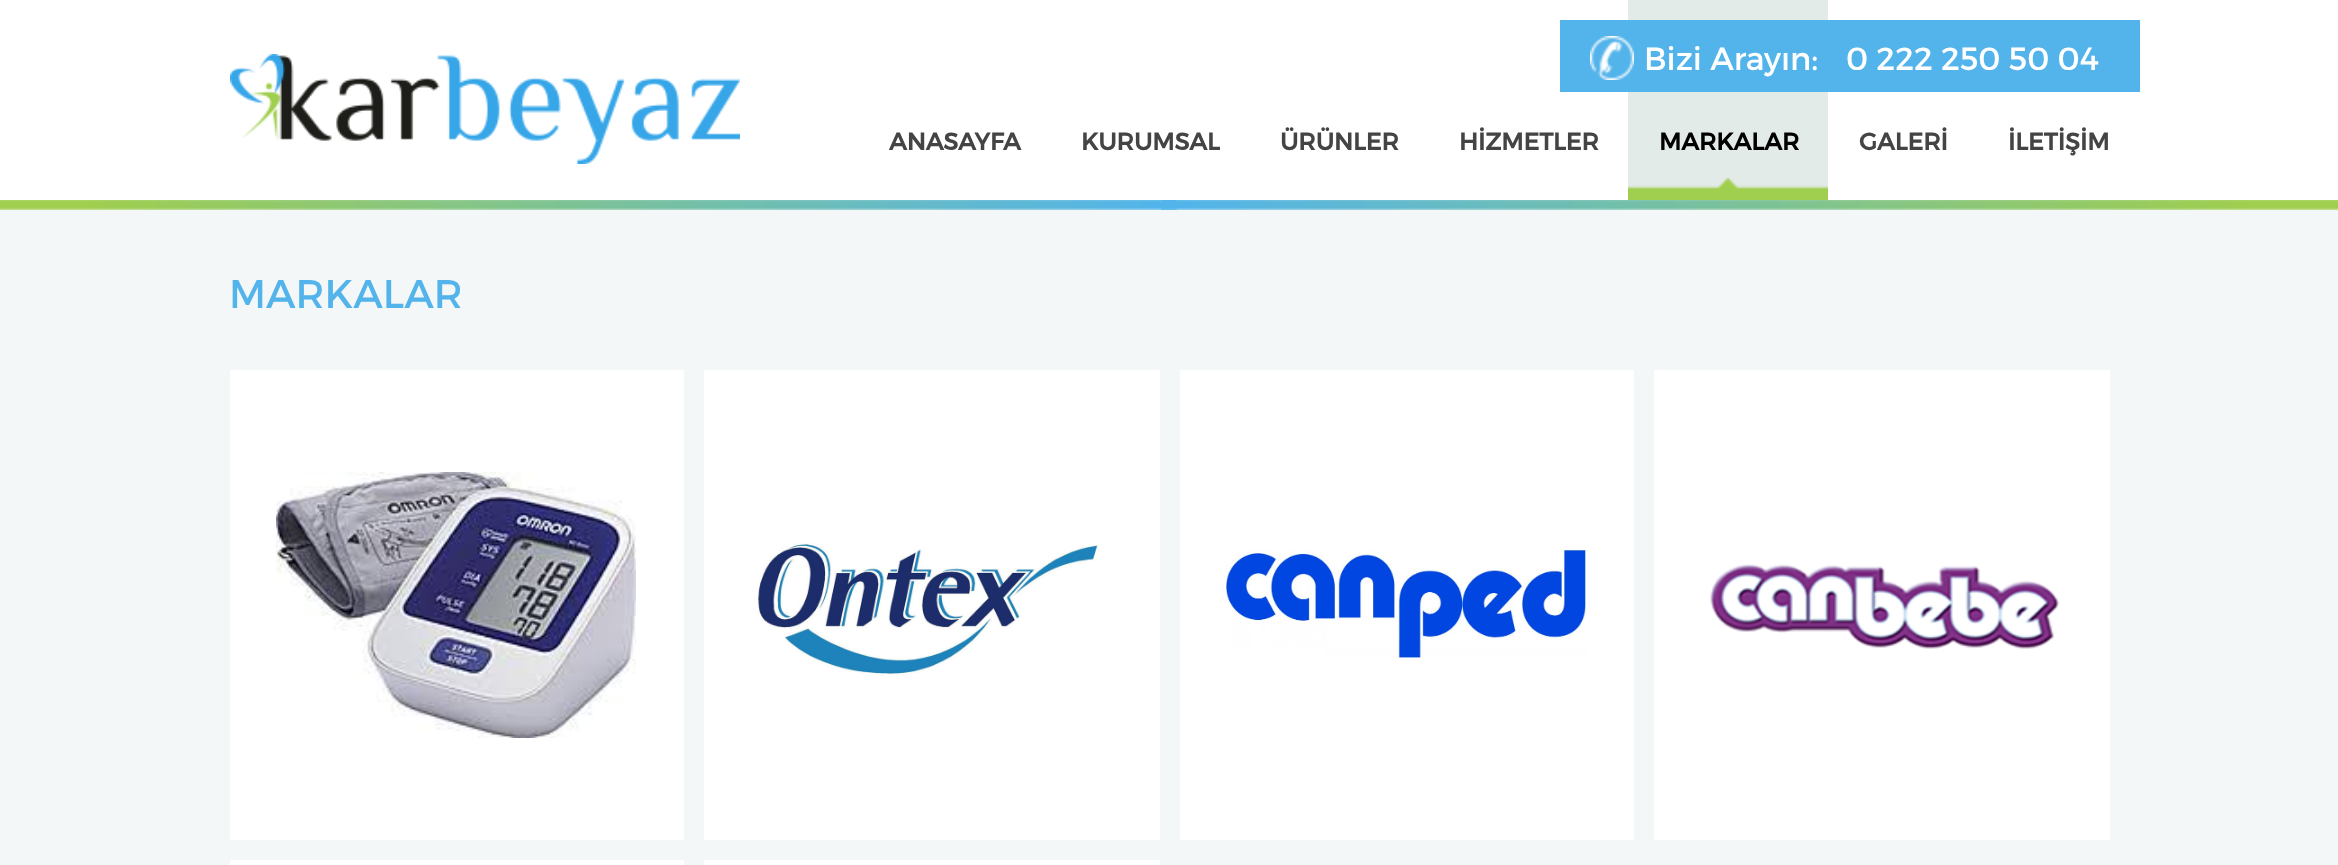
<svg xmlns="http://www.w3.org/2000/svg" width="2338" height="865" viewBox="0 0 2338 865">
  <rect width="100%" height="100%" fill="#fff"/>
  <path d="M1628 0h200v189H1628z" fill="#e3ebe9"/>
  <path d="M1560 20h580v72H1560z" fill="#53b4eb"/>
  <image x="1590" y="36" width="44" height="44" href="img/1.png"/>
  <image x="230" y="54" width="510" height="110" href="img/2.png"/>
  <image x="1628" y="178" width="200" height="22" href="img/3.png"/>
  <image x="0" y="200" width="2338" height="10" href="img/4.png"/>
  <path d="M0 210h2338v655H0z" fill="#f3f7f7"/>
  <path d="M230 370h454v470H230z" fill="#fff"/>
  <image x="276" y="472" width="360" height="266" href="img/5.png"/>
  <path d="M704 370h456v470H704z" fill="#fff"/>
  <image x="757" y="543" width="342" height="133" href="img/6.png"/>
  <path d="M1180 370h454v470H1180z" fill="#fff"/>
  <image x="1226" y="550" width="360" height="108" href="img/7.png"/>
  <path d="M1654 370h456v470H1654z" fill="#fff"/>
  <image x="1710" y="564" width="350" height="85" href="img/8.png"/>
  <path d="M230 860h454v5H230z" fill="#fff"/>
  <path d="M704 860h456v5H704z" fill="#fff"/>
  <g font-family="Montserrat" font-size="32" fill="#fff">
    <text x="1644" y="70">Bizi Arayın:</text>
    <text x="1846" y="70">0 222 250 50 04</text>
  </g>
  <g font-family="Montserrat" font-size="24" font-weight="bold" fill="#444">
    <text x="889" y="150">ANASAYFA</text>
    <text x="1081" y="150">KURUMSAL</text>
    <text x="1280" y="150">ÜRÜNLER</text>
    <text x="1459" y="150">HİZMETLER</text>
  </g>
  <text x="1659" y="150" font-family="Montserrat" font-size="24" font-weight="bold" fill="#000">MARKALAR</text>
  <g font-family="Montserrat" font-size="24" font-weight="bold" fill="#444">
    <text x="1859" y="150">GALERİ</text>
    <text x="2008" y="150">İLETİŞİM</text>
  </g>
  <text x="229" y="308" font-family="Montserrat" font-size="40" fill="#53b4eb">MARKALAR</text>
</svg>
